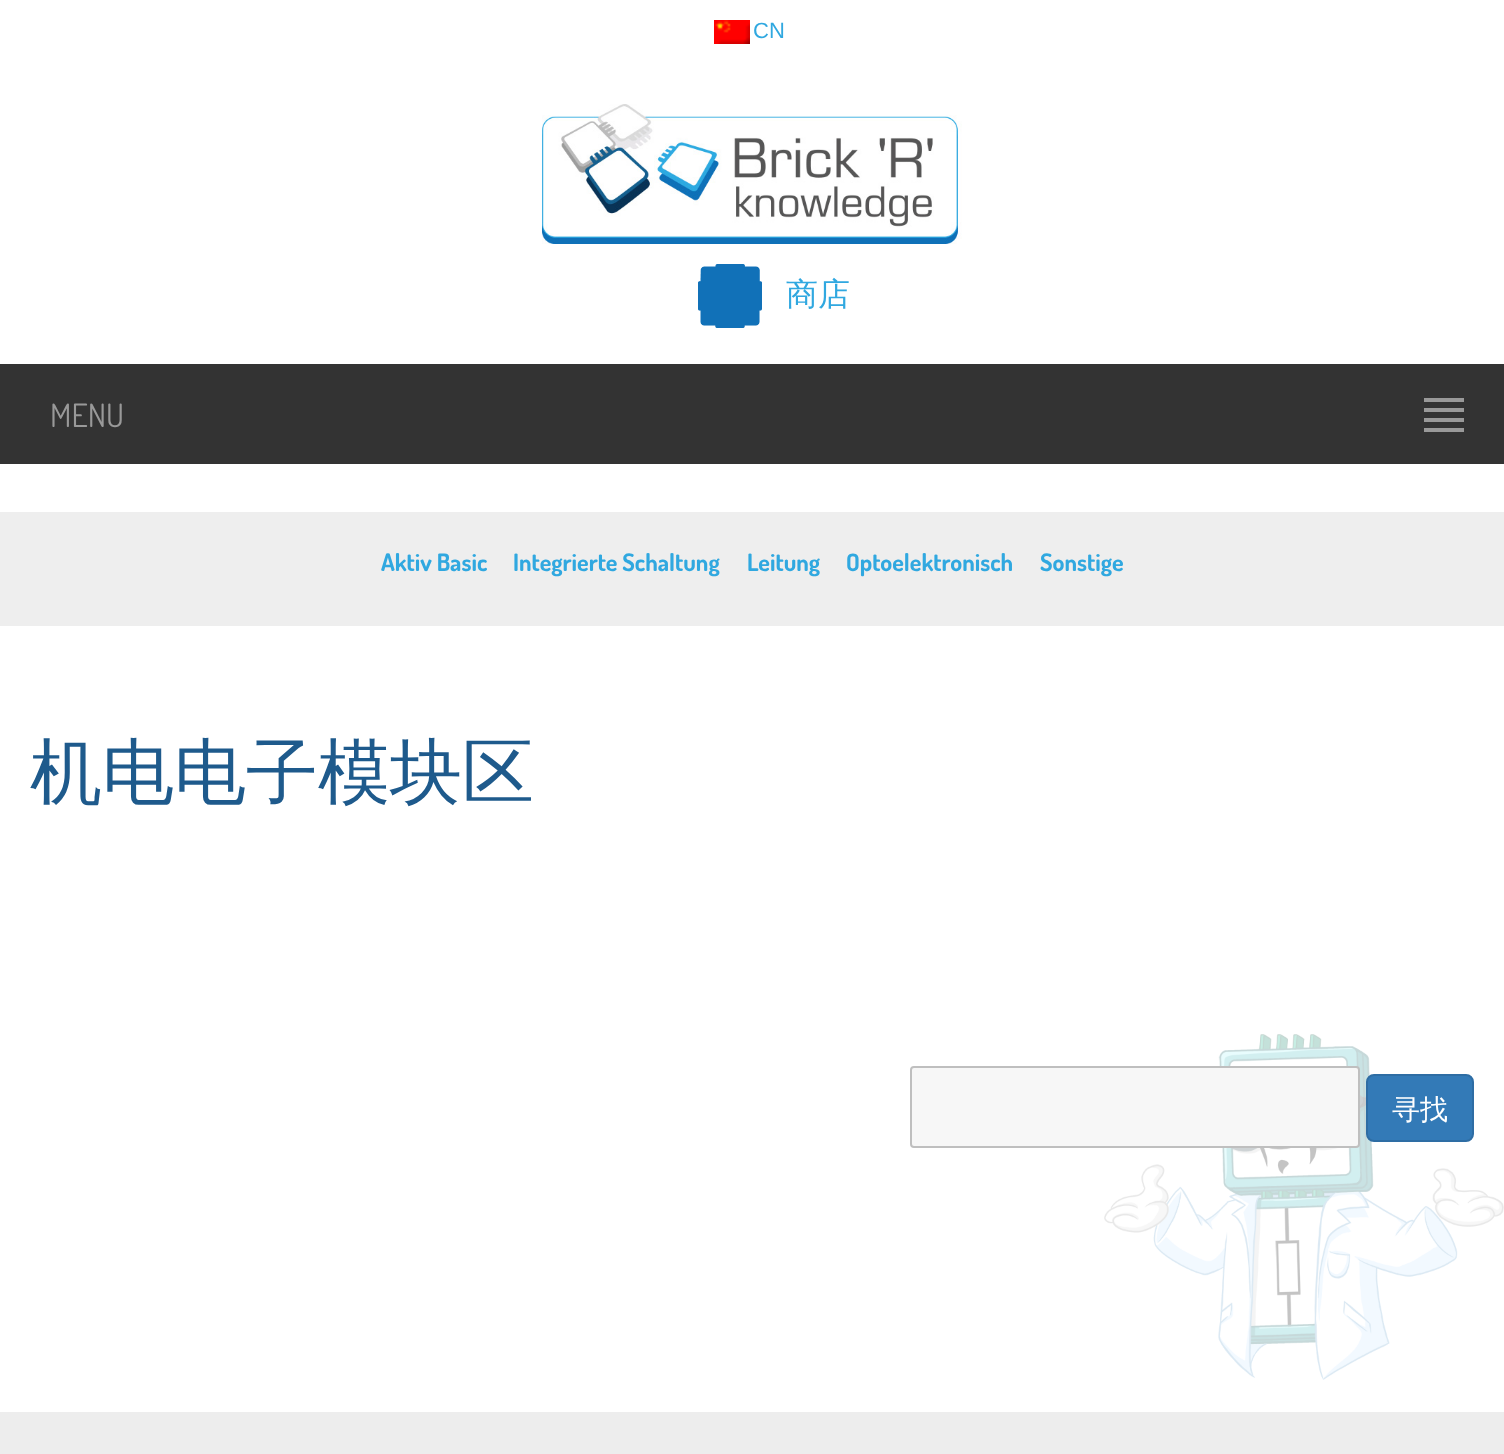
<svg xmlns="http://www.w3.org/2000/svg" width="1504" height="1454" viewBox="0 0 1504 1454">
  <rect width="100%" height="100%" fill="#fff"/>
  <image x="714" y="20" width="36" height="24" href="img/1.png"/>
  <image x="542" y="104" width="420" height="140" href="img/2.png"/>
  <image x="698" y="264" width="64" height="64" href="img/3.png"/>
  <path d="M0 512h1504v114H0z" fill="#eee"/>
  <path d="M0 364h1504v100H0z" fill="#333"/>
  <path d="M1424 398h40v4H1424z" fill="#999"/>
  <path d="M1424 408h40v4H1424z" fill="#999"/>
  <path d="M1424 418h40v4H1424z" fill="#999"/>
  <path d="M1424 428h40v4H1424z" fill="#999"/>
  <image x="1104" y="1034" width="400" height="346" href="img/4.png"/>
  <rect x="911" y="1067" width="448" height="80" rx="3" fill="#f7f7f7" stroke="#bfbfbf" stroke-width="2"/>
  <rect x="1367" y="1075" width="106" height="66" rx="7" fill="#337ab7" stroke="#2e6da4" stroke-width="2"/>
  <path d="M0 1412h1504v42H0z" fill="#ededed"/>
  <text x="753" y="38" font-family="Liberation Sans" font-size="22" fill="#30a8e0">CN</text>
  <text x="786" y="305" font-family="WenQuanYi Zen Hei" font-size="32" font-weight="500" fill="#30a8e0">商店</text>
  <text x="50" y="427" font-family="Dosis" font-size="32" fill="#999">MENU</text>
  <g font-family="Dosis" font-size="24" font-weight="bold" fill="#30a8e0">
    <text x="381" y="571">Aktiv Basic</text>
    <text x="513" y="571">Integrierte Schaltung</text>
    <text x="747" y="571">Leitung</text>
    <text x="846" y="571">Optoelektronisch</text>
    <text x="1040" y="571">Sonstige</text>
  </g>
  <text x="30" y="797" font-family="WenQuanYi Zen Hei" font-size="72" font-weight="500" fill="#1e5a8c">机电电子模块区</text>
  <text x="1392" y="1119" font-family="WenQuanYi Zen Hei" font-size="28" font-weight="500" fill="#fff">寻找</text>
</svg>
